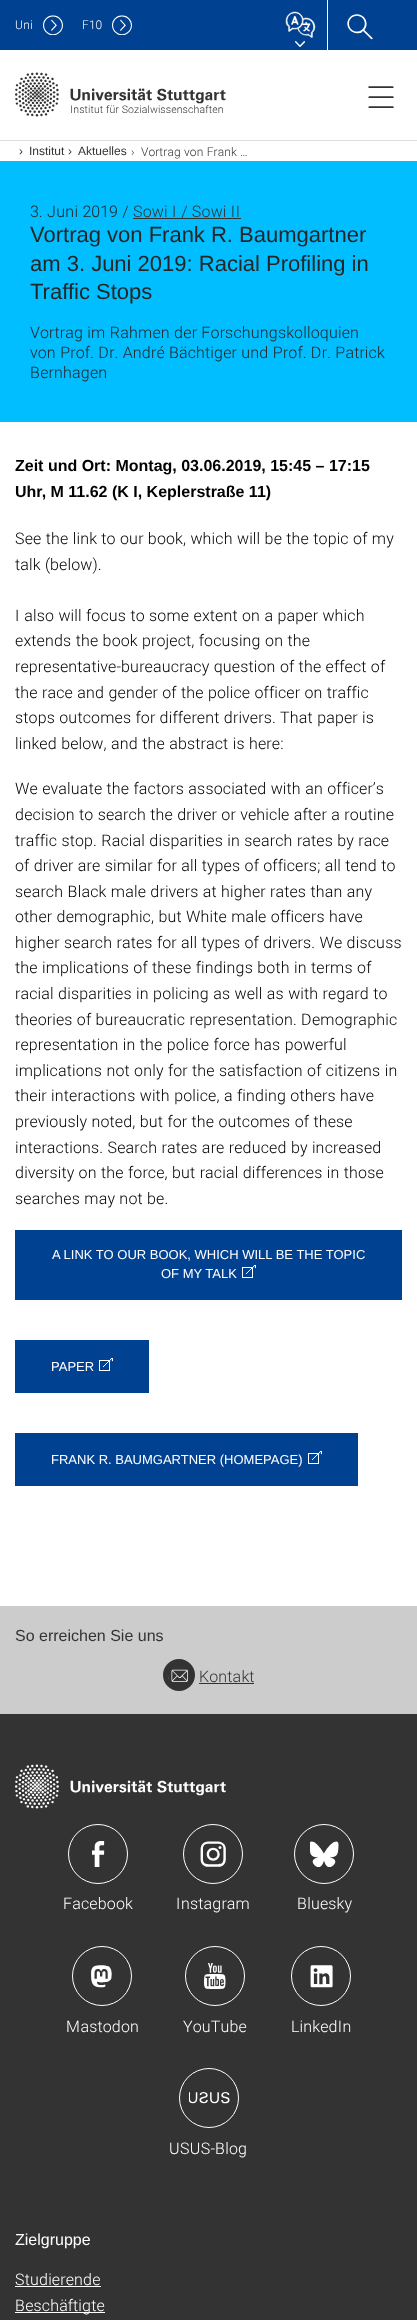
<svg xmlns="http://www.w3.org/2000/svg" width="417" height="2320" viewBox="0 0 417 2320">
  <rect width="100%" height="100%" fill="#fff"/>
  <path d="M0 0h417v50H0z" fill="#004191"/>
  <image x="43" y="15" width="20" height="20" href="img/1.png"/>
  <image x="112" y="15" width="20" height="20" href="img/2.png"/>
  <image x="285" y="11" width="31" height="27" href="img/3.png"/>
  <image x="295" y="41" width="10" height="6" href="img/4.png"/>
  <path d="M327 0h1v50H327z" fill="#fff"/>
  <image x="347" y="14" width="26" height="26" href="img/5.png"/>
  <image x="368" y="86" width="26" height="22" href="img/6.png"/>
  <image x="15" y="72" width="211" height="45" href="img/7.png"/>
  <path d="M0 140h417v1H0z" fill="#ddd"/>
  <path d="M0 161h417v261H0z" fill="#00beff"/>
  <path d="M133 218h108v1H133z" fill="#333"/>
  <path d="M15 1230h387v70H15z" fill="#004191"/>
  <image x="242" y="1265" width="14" height="13" href="img/8.png"/>
  <path d="M15 1340h134v53H15z" fill="#004191"/>
  <image x="99" y="1358" width="14" height="13" href="img/8.png"/>
  <path d="M15 1433h343v53H15z" fill="#004191"/>
  <image x="308" y="1451" width="14" height="13" href="img/8.png"/>
  <path d="M0 1714h417v606H0z" fill="#333"/>
  <path d="M0 1606h417v108H0z" fill="#ccc"/>
  <circle cx="179" cy="1675" r="13.5" fill="#333" stroke="#333" stroke-width="5"/>
  <image x="168" y="1669" width="20" height="13" href="img/9.png"/>
  <path d="M199 1683h55v1H199z" fill="#333"/>
  <image x="15" y="1764" width="211" height="45" href="img/10.png"/>
  <circle cx="98" cy="1854" r="29.5" fill="none" stroke="#fff"/>
  <image x="92" y="1841" width="13" height="26" href="img/11.png"/>
  <circle cx="213" cy="1854" r="29.5" fill="none" stroke="#fff"/>
  <image x="200" y="1841" width="26" height="26" href="img/12.png"/>
  <circle cx="324" cy="1854" r="29.5" fill="none" stroke="#fff"/>
  <image x="310" y="1841" width="29" height="26" href="img/13.png"/>
  <circle cx="102" cy="1976" r="29.5" fill="none" stroke="#fff"/>
  <image x="91" y="1965" width="21" height="23" href="img/14.png"/>
  <circle cx="215" cy="1976" r="29.5" fill="none" stroke="#fff"/>
  <image x="204" y="1963" width="22" height="26" href="img/15.png"/>
  <circle cx="321" cy="1976" r="29.5" fill="none" stroke="#fff"/>
  <image x="310" y="1965" width="23" height="23" href="img/16.png"/>
  <circle cx="209" cy="2098" r="29.5" fill="none" stroke="#fff"/>
  <image x="189" y="2092" width="41" height="12" href="img/17.png"/>
  <path d="M15 2286h86v1H15z" fill="#fff"/>
  <path d="M15 2312h90v1H15z" fill="#fff"/>
  <g font-family="Roboto" font-size="12" font-weight="300" fill="#fff">
    <text x="15" y="29">Uni</text>
    <text x="82" y="29">F10</text>
  </g>
  <text x="70" y="113" font-family="Roboto" font-size="10.5" font-weight="300" fill="#333">Institut für Sozialwissenschaften</text>
  <g font-family="Liberation Sans" font-size="12" fill="#333">
    <text x="19" y="155">›</text>
    <text x="29" y="155">Institut</text>
    <text x="68" y="155">›</text>
    <text x="78" y="155">Aktuelles</text>
  </g>
  <g font-family="Roboto" font-size="12" font-weight="300" fill="#333">
    <text x="131" y="156">›</text>
    <text x="141" y="156">Vortrag von Frank …</text>
  </g>
  <text x="30" y="217" font-family="Roboto" font-size="16" font-weight="300" fill="#262626">3. Juni 2019 /</text>
  <text x="133" y="217" font-family="Roboto" font-size="16" font-weight="300" fill="#333">Sowi I / Sowi II</text>
  <g font-family="Liberation Sans" font-size="22" fill="#262626">
    <text x="30" y="242">Vortrag von Frank R. Baumgartner</text>
    <text x="30" y="271">am 3. Juni 2019: Racial Profiling in</text>
    <text x="30" y="299">Traffic Stops</text>
  </g>
  <g font-family="Roboto" font-size="16" font-weight="300" fill="#262626">
    <text x="30" y="338">Vortrag im Rahmen der Forschungskolloquien</text>
    <text x="30" y="358">von Prof. Dr. André Bächtiger und Prof. Dr. Patrick</text>
    <text x="30" y="378">Bernhagen</text>
  </g>
  <g font-family="Liberation Sans" font-size="16" font-weight="bold" fill="#000">
    <text x="15" y="471">Zeit und Ort: Montag, 03.06.2019, 15:45 – 17:15</text>
    <text x="15" y="497">Uhr, M 11.62 (K I, Keplerstraße 11)</text>
  </g>
  <g font-family="Roboto" font-size="16" font-weight="300" fill="#000">
    <text x="15" y="544">See the link to our book, which will be the topic of my</text>
    <text x="15" y="570">talk (below).</text>
    <text x="15" y="621">I also will focus to some extent on a paper which</text>
    <text x="15" y="646">extends the book project, focusing on the</text>
    <text x="15" y="672">representative-bureaucracy question of the effect of</text>
    <text x="15" y="698">the race and gender of the police officer on traffic</text>
    <text x="15" y="723">stops outcomes for different drivers. That paper is</text>
    <text x="15" y="749">linked below, and the abstract is here:</text>
    <text x="15" y="794">We evaluate the factors associated with an officer’s</text>
    <text x="15" y="820">decision to search the driver or vehicle after a routine</text>
    <text x="15" y="846">traffic stop. Racial disparities in search rates by race</text>
    <text x="15" y="871">of driver are similar for all types of officers; all tend to</text>
    <text x="15" y="897">search Black male drivers at higher rates than any</text>
    <text x="15" y="922">other demographic, but White male officers have</text>
    <text x="15" y="948">higher search rates for all types of drivers. We discuss</text>
    <text x="15" y="973">the implications of these findings both in terms of</text>
    <text x="15" y="999">racial disparities in policing as well as with regard to</text>
    <text x="15" y="1025">theories of bureaucratic representation. Demographic</text>
    <text x="15" y="1050">representation in the police force has powerful</text>
    <text x="15" y="1076">implications not only for the satisfaction of citizens in</text>
    <text x="15" y="1101">their interactions with police, a finding others have</text>
    <text x="15" y="1127">previously noted, but for the outcomes of these</text>
    <text x="15" y="1153">interactions. Search rates are reduced by increased</text>
    <text x="15" y="1178">diversity on the force, but racial differences in those</text>
    <text x="15" y="1204">searches may not be.</text>
  </g>
  <g font-family="Liberation Sans" font-size="13" fill="#fff">
    <text x="52" y="1259">A LINK TO OUR BOOK, WHICH WILL BE THE TOPIC</text>
    <text x="161" y="1278">OF MY TALK</text>
    <text x="51" y="1371">PAPER</text>
    <text x="51" y="1464">FRANK R. BAUMGARTNER (HOMEPAGE)</text>
  </g>
  <text x="15" y="1641" font-family="Liberation Sans" font-size="16" fill="#333">So erreichen Sie uns</text>
  <text x="199" y="1682" font-family="Roboto" font-size="16" font-weight="300" fill="#333">Kontakt</text>
  <g font-family="Roboto" font-size="16" font-weight="300" fill="#fff">
    <text x="63" y="1909">Facebook</text>
    <text x="176" y="1909">Instagram</text>
    <text x="297" y="1909">Bluesky</text>
    <text x="66" y="2032">Mastodon</text>
    <text x="183" y="2032">YouTube</text>
    <text x="291" y="2032">LinkedIn</text>
    <text x="169" y="2154">USUS-Blog</text>
  </g>
  <text x="15" y="2245" font-family="Liberation Sans" font-size="16" fill="#fff">Zielgruppe</text>
  <g font-family="Roboto" font-size="16" font-weight="300" fill="#fff">
    <text x="15" y="2285">Studierende</text>
    <text x="15" y="2311">Beschäftigte</text>
  </g>
</svg>
